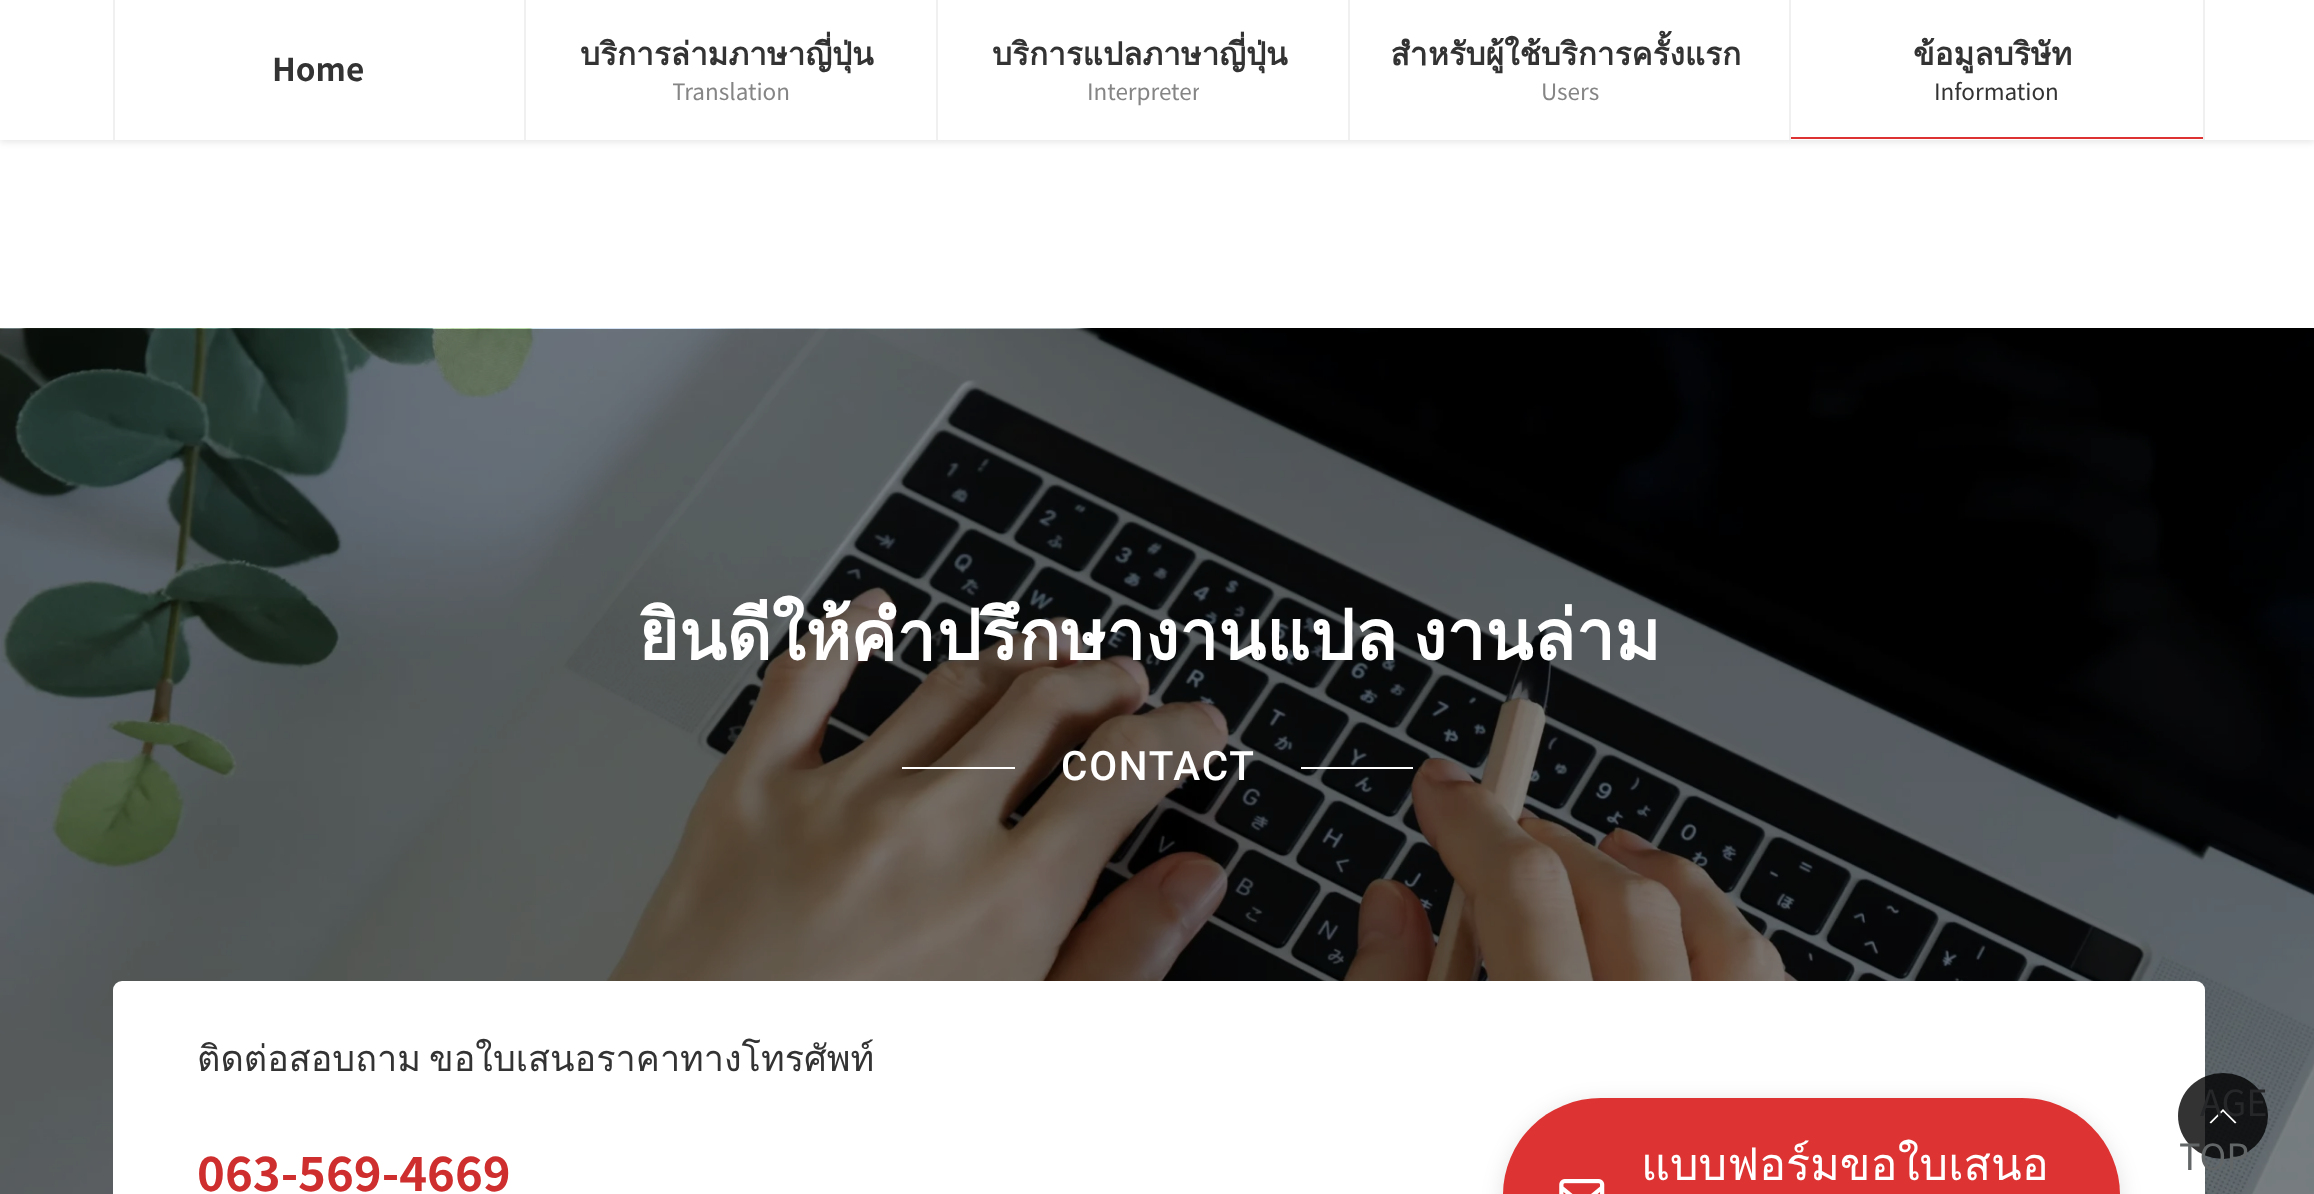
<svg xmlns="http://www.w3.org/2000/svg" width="2314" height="1194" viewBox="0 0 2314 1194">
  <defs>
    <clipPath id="clip1"><path d="M673 77h117v31H673z"/></clipPath>
    <clipPath id="clip2"><path d="M1087 77h112v31H1087z"/></clipPath>
  </defs>
  <rect width="100%" height="100%" fill="#fff"/>
  <path d="M0 2h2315v140H0z" fill="#0000001a" filter="blur(3.5px)"/>
  <path d="M0 0h2314v140H0z" fill="#fff"/>
  <path d="M524 0h2v140H524z" fill="#f0f0f0"/>
  <path d="M113 0h2v140H113z" fill="#f0f0f0"/>
  <path d="M936 0h2v140H936z" fill="#f0f0f0"/>
  <path d="M1348 0h2v140H1348z" fill="#f0f0f0"/>
  <path d="M1789 0h2v140H1789z" fill="#f0f0f0"/>
  <path d="M2203 0h2v140H2203z" fill="#f0f0f0"/>
  <path d="M1791 137h412v2H1791z" fill="#d33"/>
  <image x="0" y="328" width="2314" height="866" href="img/1.png"/>
  <path d="M902 767h113v2H902z" fill="#fff"/>
  <path d="M1301 767h112v2H1301z" fill="#fff"/>
  <rect x="113" y="981" width="2092" height="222" rx="9" fill="#fff"/>
  <rect x="1503" y="1103" width="617" height="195" rx="97.5" fill="#0000001f" filter="blur(11px)"/>
  <rect x="1503" y="1098" width="617" height="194" rx="98" fill="#d33"/>
  <image x="1559" y="1179" width="46" height="15" href="img/2.png"/>
  <ellipse cx="2223" cy="1116" rx="45" ry="43" fill="#000000cc"/>
  <path d="M2236.5 1122.5L2235 1123.5L2223 1111.5L2211 1123.5L2209.5 1122.5L2223 1109Z" fill="#fff"/>
  <text x="272" y="81" font-family="Noto Sans JP" font-size="31.5" font-weight="bold" fill="#333">Home</text>
  <text x="580" y="65" font-family="Loma" font-size="31.5" font-weight="bold" fill="#333">บริการล่ามภาษาญี่ปุ่น</text>
  <g clip-path="url(#clip1)">
    <text x="672" y="100" font-family="Noto Sans JP" font-size="22.5" fill="#858585">Translation</text>
  </g>
  <text x="992" y="65" font-family="Loma" font-size="31.5" font-weight="bold" fill="#333">บริการแปลภาษาญี่ปุ่น</text>
  <g clip-path="url(#clip2)">
    <text x="1087" y="100" font-family="Noto Sans JP" font-size="22.5" fill="#858585">Interpreter</text>
  </g>
  <text x="1391" y="65" font-family="Loma" font-size="31.5" font-weight="bold" fill="#333">สำหรับผู้ใช้บริการครั้งแรก</text>
  <text x="1541" y="100" font-family="Noto Sans JP" font-size="22.5" fill="#858585">Users</text>
  <text x="1913" y="65" font-family="Loma" font-size="31.5" font-weight="bold" fill="#333">ข้อมูลบริษัท</text>
  <text x="1934" y="100" font-family="Noto Sans JP" font-size="22.5" fill="#333">Information</text>
  <text x="638" y="660" word-spacing="-8" font-family="Loma" font-size="69.5" font-weight="bold" fill="#fff">ยินดีให้คำปรึกษางานแปล งานล่าม</text>
  <text x="1061" y="780" font-family="Roboto" font-size="40.5" font-weight="500" letter-spacing="1.75" fill="#fff">CONTACT</text>
  <text x="197" y="1071" word-spacing="-4" font-family="Loma" font-size="36" fill="#333">ติดต่อสอบถาม ขอใบเสนอราคาทางโทรศัพท์</text>
  <text x="197" y="1191" font-family="Noto Sans JP" font-size="47.25" font-weight="bold" fill="#cf2e2e">063-569-4669</text>
  <text x="1641" y="1180" font-family="Loma" font-size="45" fill="#fff">แบบฟอร์มขอใบเสนอ</text>
  <text x="2200" y="1116" font-family="Noto Sans JP" font-size="36" fill="#262728">AGE</text>
  <text x="2179" y="1170" font-family="Noto Sans JP" font-size="36" fill="#636667">TOP</text>
</svg>
